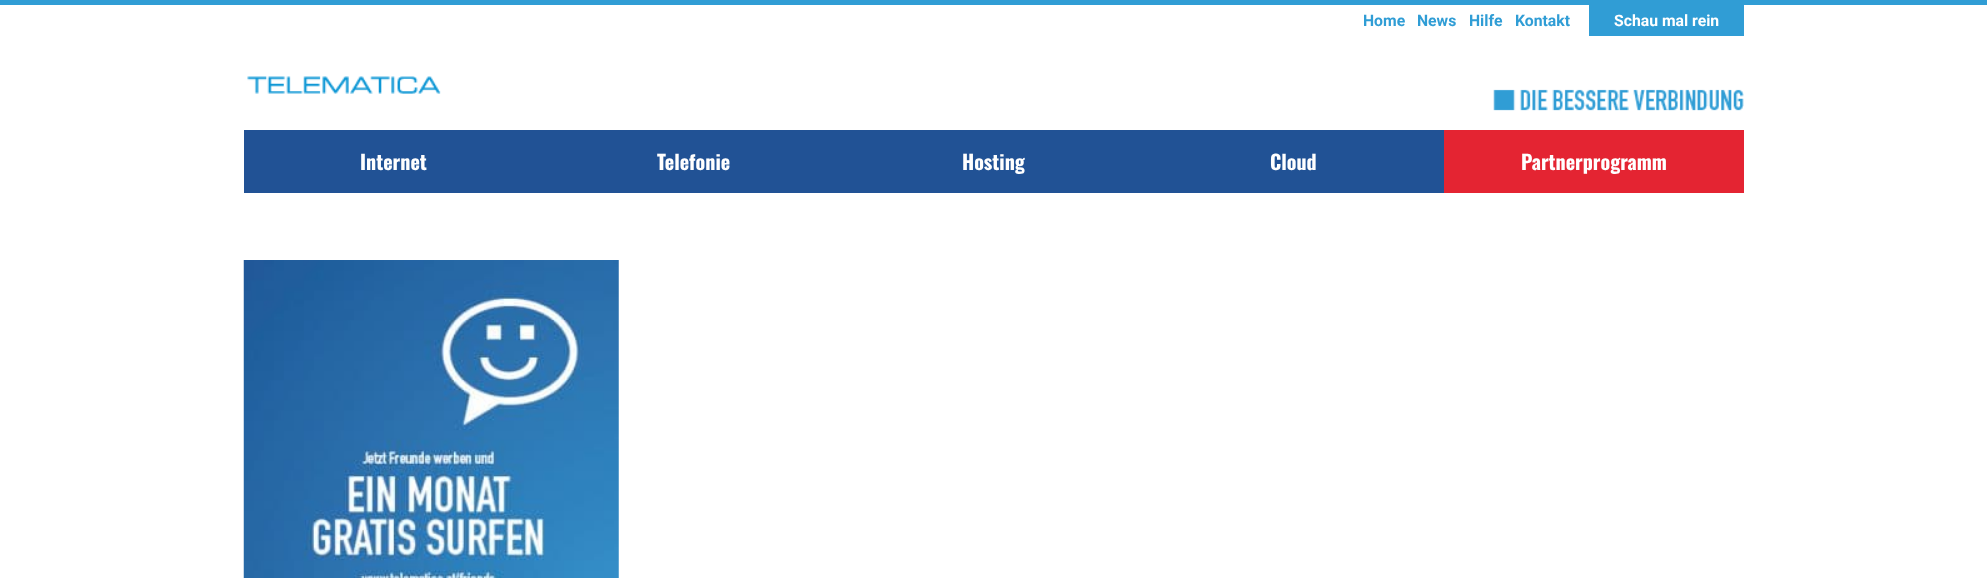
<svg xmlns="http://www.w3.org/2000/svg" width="1987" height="578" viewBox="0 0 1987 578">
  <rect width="100%" height="100%" fill="#fff"/>
  <path d="M0 0h1987v5H0z" fill="#309dd5"/>
  <path d="M1589 5h155v31H1589z" fill="#309dd5"/>
  <image x="247" y="76" width="194" height="18" href="img/1.png"/>
  <image x="1493" y="89" width="251" height="22" href="img/2.png"/>
  <path d="M244 130h1200v63H244z" fill="#215295"/>
  <path d="M1444 130h300v63H1444z" fill="#e42432"/>
  <image x="243" y="260" width="376" height="318" href="img/3.png"/>
  <g font-family="Roboto" font-size="15.75" font-weight="bold" fill="#309dd5">
    <text x="1363" y="26">Home</text>
    <text x="1417" y="26">News</text>
    <text x="1469" y="26">Hilfe</text>
    <text x="1515" y="26">Kontakt</text>
  </g>
  <text x="1614" y="26" font-family="Roboto" font-size="15.75" font-weight="bold" fill="#fff">Schau mal rein</text>
  <g font-family="Oswald" font-size="20" font-weight="bold" fill="#fff">
    <text x="360" y="170">Internet</text>
    <text x="657" y="170">Telefonie</text>
    <text x="962" y="170">Hosting</text>
    <text x="1270" y="170">Cloud</text>
    <text x="1521" y="170">Partnerprogramm</text>
  </g>
</svg>
